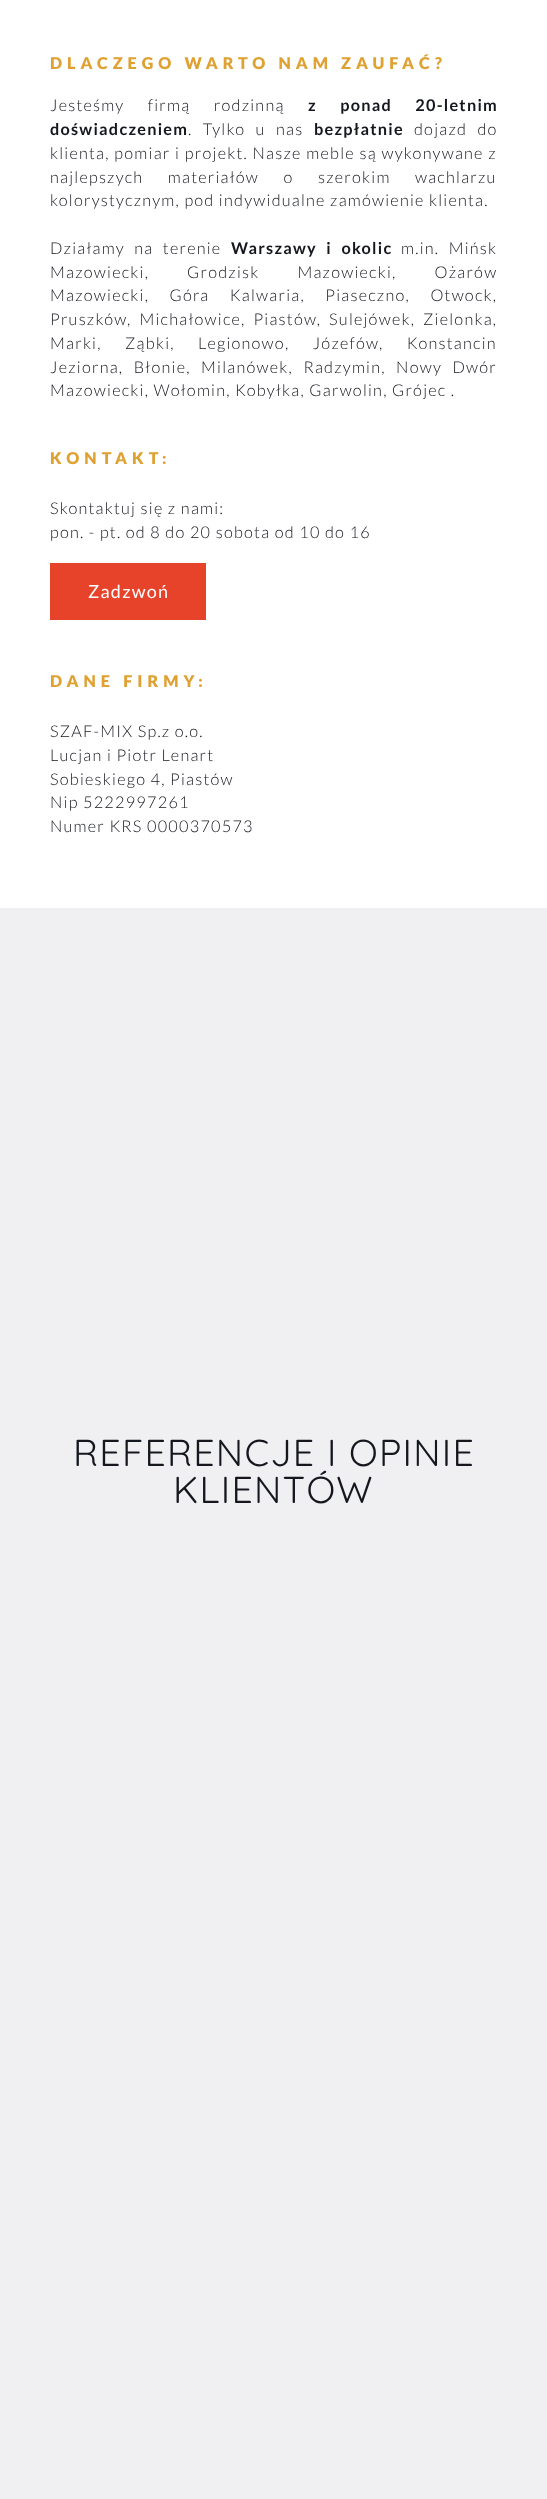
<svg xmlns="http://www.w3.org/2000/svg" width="547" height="2499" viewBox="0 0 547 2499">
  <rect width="100%" height="100%" fill="#f0f0f2"/>
  <path d="M0 0h547v908H0z" fill="#fff"/>
  <path d="M50 563h156v57H50z" fill="#e7432b"/>
  <text x="50" y="69" font-family="Lato" font-size="16.25" font-weight="900" letter-spacing="5" fill="#dea132">DLACZEGO WARTO NAM ZAUFAĆ?</text>
  <text x="50" y="111" word-spacing="19" font-family="Lato" font-size="16.25" font-weight="300" letter-spacing="1.25" fill="#15171e">Jesteśmy firmą rodzinną</text>
  <g font-family="Lato" font-size="16.25" font-weight="bold" letter-spacing="1.25" fill="#15171e">
    <text x="308" y="111" word-spacing="19">z ponad 20-letnim</text>
    <text x="50" y="135">doświadczeniem</text>
  </g>
  <text x="188" y="135" word-spacing="6" font-family="Lato" font-size="16.25" font-weight="300" letter-spacing="1.25" fill="#15171e">. Tylko u nas</text>
  <text x="314" y="135" font-family="Lato" font-size="16.25" font-weight="bold" letter-spacing="1.25" fill="#15171e">bezpłatnie</text>
  <g font-family="Lato" font-size="16.25" font-weight="300" letter-spacing="1.25" fill="#15171e">
    <text x="414" y="135" word-spacing="6">dojazd do</text>
    <text x="50" y="159" word-spacing="0.25">klienta, pomiar i projekt. Nasze meble są wykonywane z</text>
    <text x="50" y="183" word-spacing="20">najlepszych materiałów o szerokim wachlarzu</text>
    <text x="50" y="206">kolorystycznym, pod indywidualne zamówienie klienta.</text>
    <text x="50" y="254" word-spacing="5">Działamy na terenie</text>
  </g>
  <text x="231" y="254" word-spacing="5" font-family="Lato" font-size="16.25" font-weight="bold" letter-spacing="1.25" fill="#15171e">Warszawy i okolic</text>
  <g font-family="Lato" font-size="16.25" font-weight="300" letter-spacing="1.25" fill="#15171e">
    <text x="401" y="254" word-spacing="5">m.in. Mińsk</text>
    <text x="50" y="278" word-spacing="33.5">Mazowiecki, Grodzisk Mazowiecki, Ożarów</text>
    <text x="50" y="301" word-spacing="16">Mazowiecki, Góra Kalwaria, Piaseczno, Otwock,</text>
    <text x="50" y="325" word-spacing="3.5">Pruszków, Michałowice, Piastów, Sulejówek, Zielonka,</text>
    <text x="50" y="349" word-spacing="19">Marki, Ząbki, Legionowo, Józefów, Konstancin</text>
    <text x="50" y="373" word-spacing="6">Jeziorna, Błonie, Milanówek, Radzymin, Nowy Dwór</text>
    <text x="50" y="396">Mazowiecki, Wołomin, Kobyłka, Garwolin, Grójec .</text>
  </g>
  <text x="50" y="464" font-family="Lato" font-size="16.25" font-weight="900" letter-spacing="5" fill="#dea132">KONTAKT:</text>
  <g font-family="Lato" font-size="16.25" font-weight="300" letter-spacing="1.25" fill="#15171e">
    <text x="50" y="514">Skontaktuj się z nami:</text>
    <text x="50" y="538">pon. - pt. od 8 do 20 sobota od 10 do 16</text>
  </g>
  <text x="88" y="598" font-family="Lato" font-size="18" letter-spacing="1.25" fill="#fff">Zadzwoń</text>
  <text x="50" y="687" font-family="Lato" font-size="16.25" font-weight="900" letter-spacing="5" fill="#dea132">DANE FIRMY:</text>
  <g font-family="Lato" font-size="16.25" font-weight="300" letter-spacing="1.25" fill="#15171e">
    <text x="50" y="737">SZAF-MIX Sp.z o.o.</text>
    <text x="50" y="761">Lucjan i Piotr Lenart</text>
    <text x="50" y="785">Sobieskiego 4, Piastów</text>
    <text x="50" y="808">Nip 5222997261</text>
    <text x="50" y="832">Numer KRS 0000370573</text>
  </g>
  <g font-family="Quicksand" font-size="37.5" font-weight="300" letter-spacing="1.25" fill="#15171e">
    <text x="73" y="1466">REFERENCJE I OPINIE</text>
    <text x="173" y="1503">KLIENTÓW</text>
  </g>
</svg>
